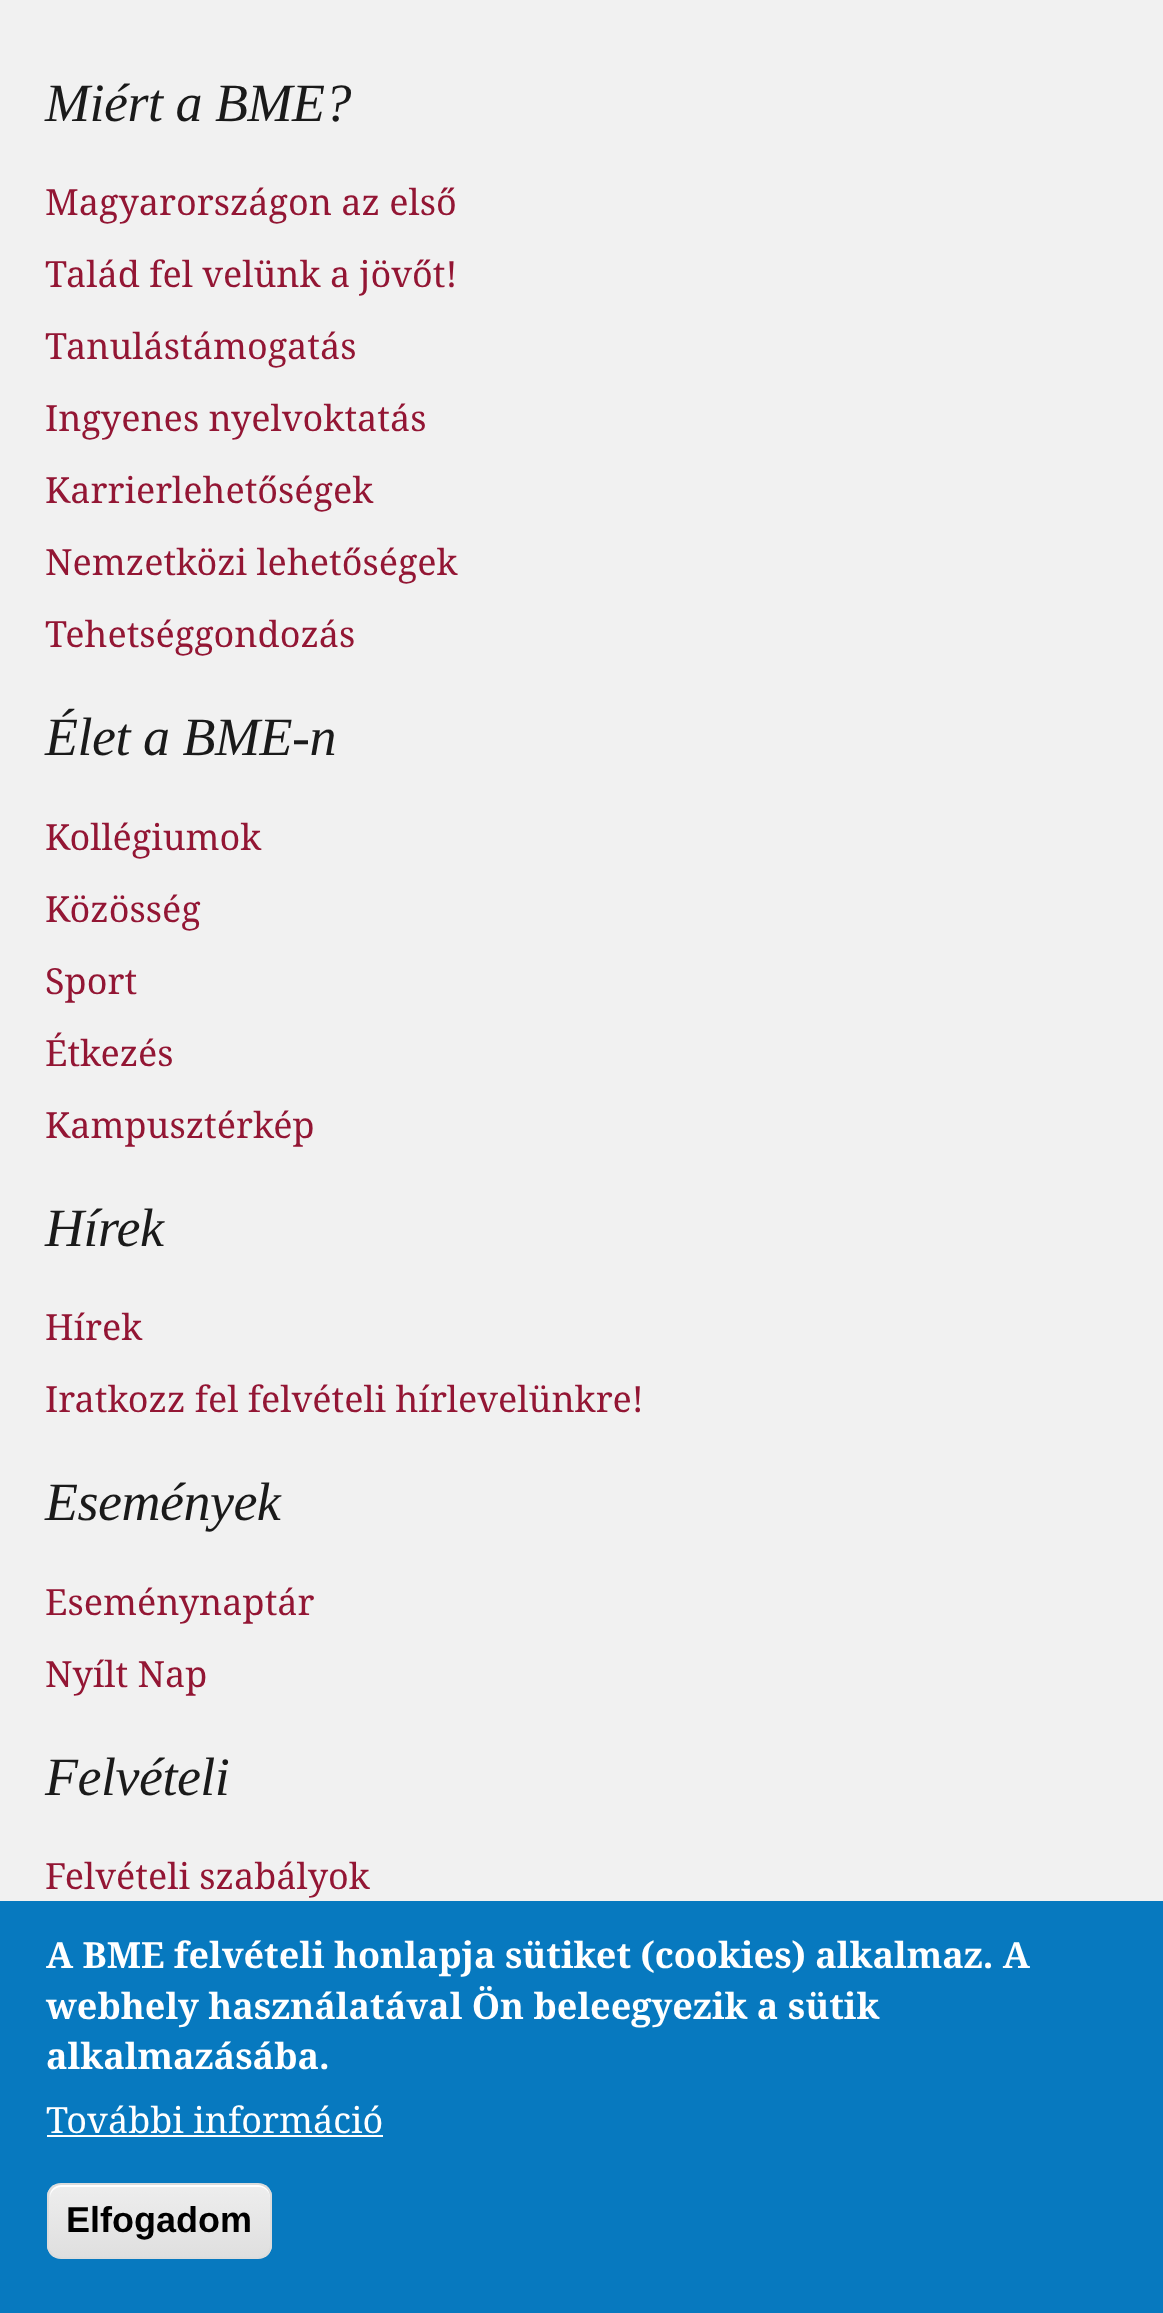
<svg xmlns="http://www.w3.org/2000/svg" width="1163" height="2313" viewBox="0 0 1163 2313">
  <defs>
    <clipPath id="clip1"><rect x="47" y="2183" width="225" height="76" rx="14"/></clipPath>
    <linearGradient id="g1" gradientUnits="userSpaceOnUse" x1="160" y1="2185" x2="160" y2="2257"><stop offset="0.05" stop-color="#ededed"/><stop offset="1" stop-color="#dfdfdf"/></linearGradient>
  </defs>
  <rect width="100%" height="100%" fill="#f1f1f1"/>
  <path d="M0 1901h1163v412H0z" fill="#0779bf"/>
  <path d="M47 2135h336v2H47z" fill="#fff"/>
  <g clip-path="url(#clip1)">
    <path d="M47 2185h225v72H47z" fill="url(#g1)"/>
  </g>
  <path d="M61 2187H259C265 2187 270 2192 270 2198V2196C270 2190 265 2185 259 2185H61C55 2185 50 2190 50 2196V2198C50 2192 55 2187 61 2187Z" fill="#fff"/>
  <rect x="48" y="2184" width="223" height="74" rx="13" fill="none" stroke="#dcdcdc" stroke-width="2"/>
  <text x="45" y="121" font-family="Liberation Serif" font-size="54" font-style="italic" letter-spacing="-0.5" fill="#1a1a1a">Miért a BME?</text>
  <g font-family="Noto Serif" font-size="36" fill="#931634">
    <text x="45" y="215">Magyarországon az első</text>
    <text x="45" y="287">Talád fel velünk a jövőt!</text>
    <text x="45" y="359">Tanulástámogatás</text>
    <text x="45" y="431">Ingyenes nyelvoktatás</text>
    <text x="45" y="503">Karrierlehetőségek</text>
    <text x="45" y="575">Nemzetközi lehetőségek</text>
    <text x="45" y="647">Tehetséggondozás</text>
  </g>
  <text x="45" y="755" font-family="Liberation Serif" font-size="54" font-style="italic" letter-spacing="-0.5" fill="#1a1a1a">Élet a BME-n</text>
  <g font-family="Noto Serif" font-size="36" fill="#931634">
    <text x="45" y="850">Kollégiumok</text>
    <text x="45" y="922">Közösség</text>
    <text x="45" y="994">Sport</text>
    <text x="45" y="1066">Étkezés</text>
    <text x="45" y="1138">Kampusztérkép</text>
  </g>
  <text x="45" y="1246" font-family="Liberation Serif" font-size="54" font-style="italic" letter-spacing="-0.5" fill="#1a1a1a">Hírek</text>
  <g font-family="Noto Serif" font-size="36" fill="#931634">
    <text x="45" y="1340">Hírek</text>
    <text x="45" y="1412">Iratkozz fel felvételi hírlevelünkre!</text>
  </g>
  <text x="45" y="1520" font-family="Liberation Serif" font-size="54" font-style="italic" letter-spacing="-0.5" fill="#1a1a1a">Események</text>
  <g font-family="Noto Serif" font-size="36" fill="#931634">
    <text x="45" y="1615">Eseménynaptár</text>
    <text x="45" y="1687">Nyílt Nap</text>
  </g>
  <text x="45" y="1795" font-family="Liberation Serif" font-size="54" font-style="italic" letter-spacing="-0.5" fill="#1a1a1a">Felvételi</text>
  <text x="45" y="1889" font-family="Noto Serif" font-size="36" fill="#931634">Felvételi szabályok</text>
  <g font-family="Noto Serif" font-size="36" font-weight="bold" fill="#fff">
    <text x="46" y="1968">A BME felvételi honlapja sütiket (cookies) alkalmaz. A</text>
    <text x="46" y="2019">webhely használatával Ön beleegyezik a sütik</text>
    <text x="46" y="2069">alkalmazásába.</text>
  </g>
  <text x="46" y="2133" font-family="Noto Serif" font-size="36" fill="#fff">További információ</text>
  <text x="66" y="2232" font-family="Liberation Sans" font-size="36" font-weight="bold" fill="#000">Elfogadom</text>
</svg>
